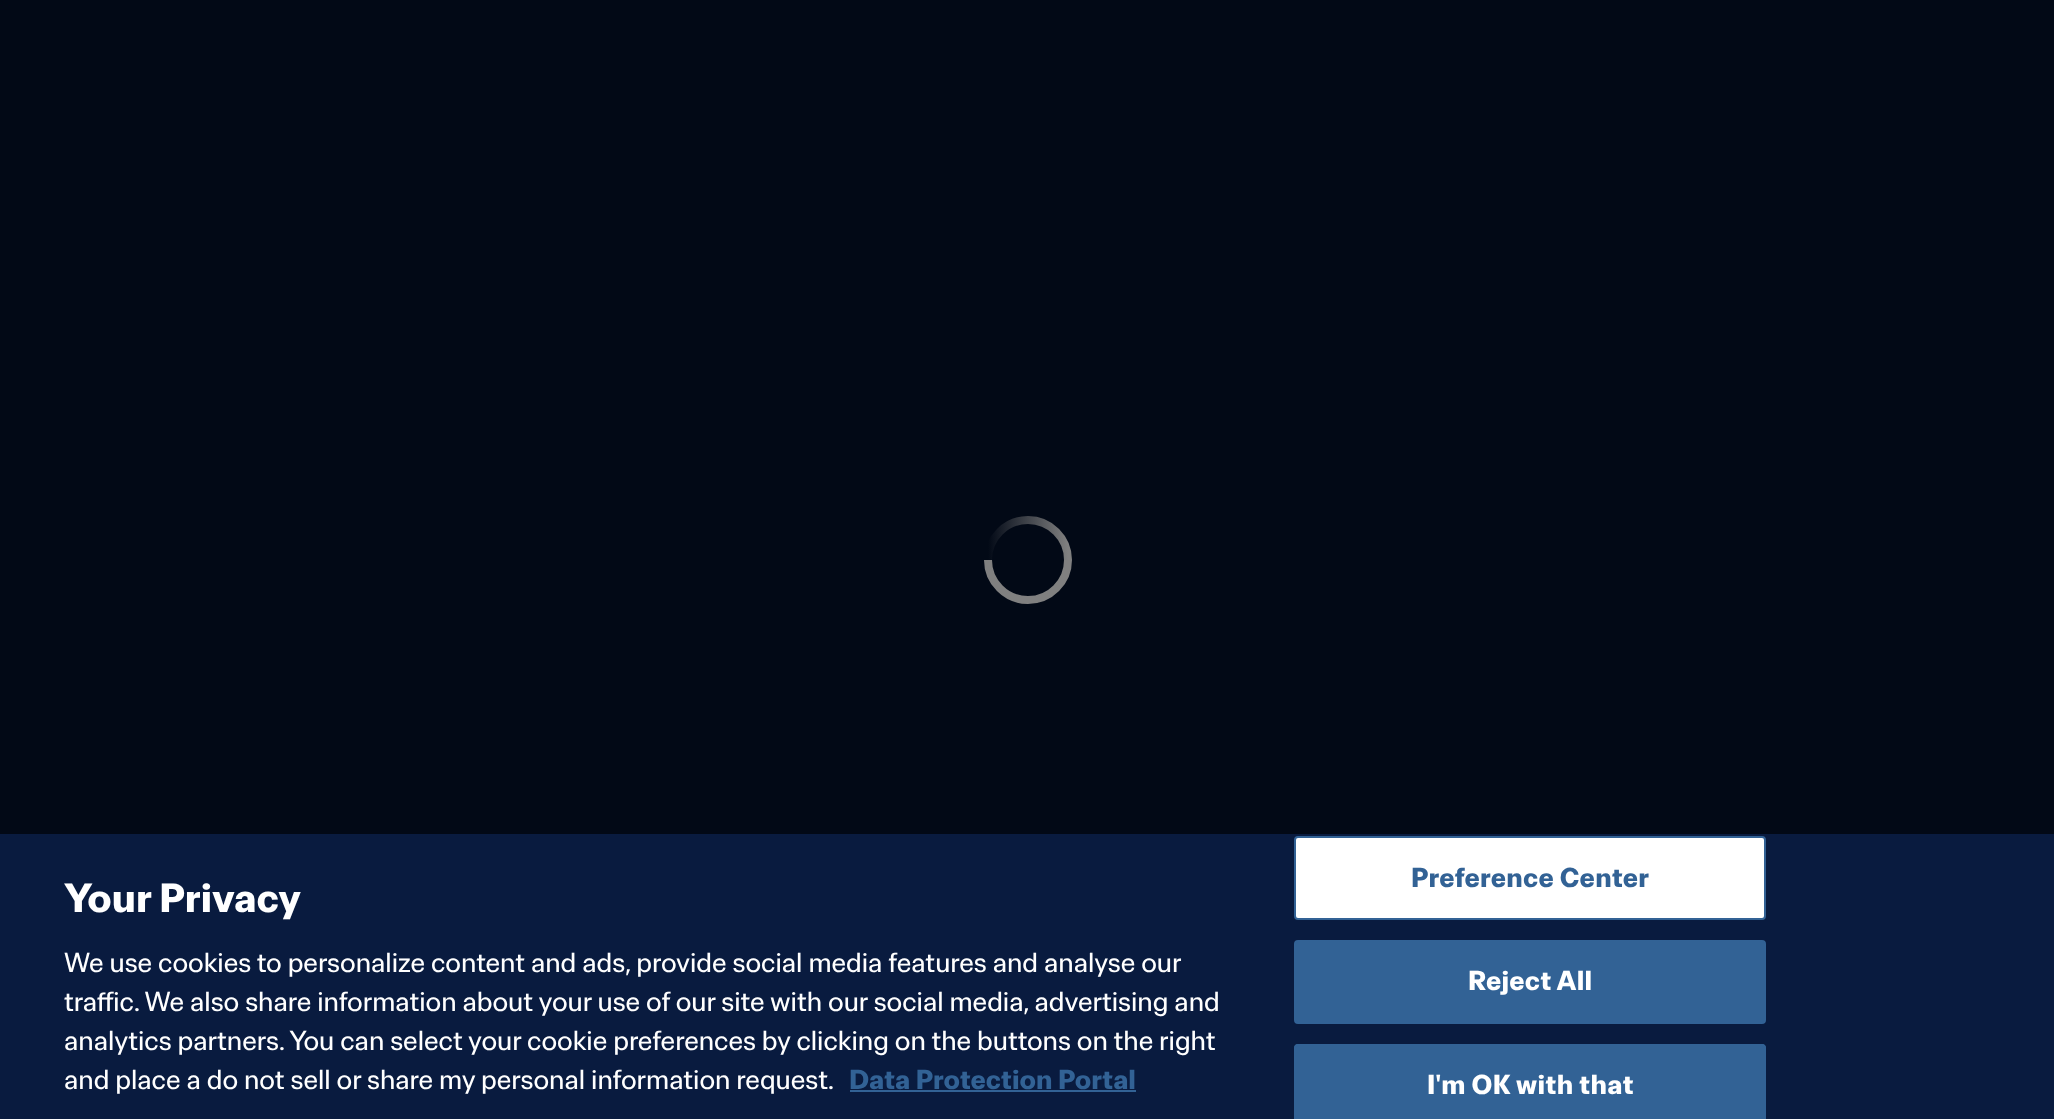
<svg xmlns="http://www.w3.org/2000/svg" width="2054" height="1119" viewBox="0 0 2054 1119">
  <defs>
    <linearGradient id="g1" gradientUnits="userSpaceOnUse" x1="988" y1="520" x2="1068" y2="520"><stop offset="0" stop-color="#020916"/><stop offset="1" stop-color="#808080"/></linearGradient>
  </defs>
  <rect width="100%" height="100%" fill="#020916"/>
  <path d="M988 560C988 538 1006 520 1028 520C1050 520 1068 538 1068 560" fill="none" stroke="url(#g1)" stroke-width="8"/>
  <path d="M1068 560C1068 582 1050 600 1028 600C1006 600 988 582 988 560" fill="none" stroke="#808080" stroke-width="8"/>
  <path d="M0 834h2054v285H0z" fill="#091b3f"/>
  <path d="M850 1090h286v2H850z" fill="#326295"/>
  <rect x="1295" y="837" width="470" height="82" rx="3" fill="#fff" stroke="#326295" stroke-width="2"/>
  <rect x="1295" y="941" width="470" height="82" rx="3" fill="#326295" stroke="#326295" stroke-width="2"/>
  <path d="M1298 1044H1762C1764 1044 1766 1046 1766 1048V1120H1294V1048C1294 1046 1296 1044 1298 1044Z" fill="#326295"/>
  <rect x="1295" y="1045" width="470" height="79" rx="3" fill="none" stroke="#326295" stroke-width="2"/>
  <text x="64" y="912" font-family="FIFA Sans" font-size="38.5" font-weight="bold" fill="#fff">Your Privacy</text>
  <g font-family="FIFA Sans" font-size="26" fill="#fff">
    <text x="64" y="972">We use cookies to personalize content and ads, provide social media features and analyse our</text>
    <text x="64" y="1011">traffic. We also share information about your use of our site with our social media, advertising and</text>
    <text x="64" y="1050">analytics partners. You can select your cookie preferences by clicking on the buttons on the right</text>
    <text x="64" y="1089">and place a do not sell or share my personal information request.</text>
  </g>
  <text x="849" y="1089" font-family="FIFA Sans" font-size="26" font-weight="bold" fill="#326295">Data Protection Portal</text>
  <text x="1411" y="887" font-family="FIFA Sans" font-size="26" font-weight="bold" letter-spacing="0.25" fill="#326295">Preference Center</text>
  <g font-family="FIFA Sans" font-size="26" font-weight="bold" letter-spacing="0.25" fill="#fff">
    <text x="1468" y="990">Reject All</text>
    <text x="1427" y="1094">I'm OK with that</text>
  </g>
</svg>
